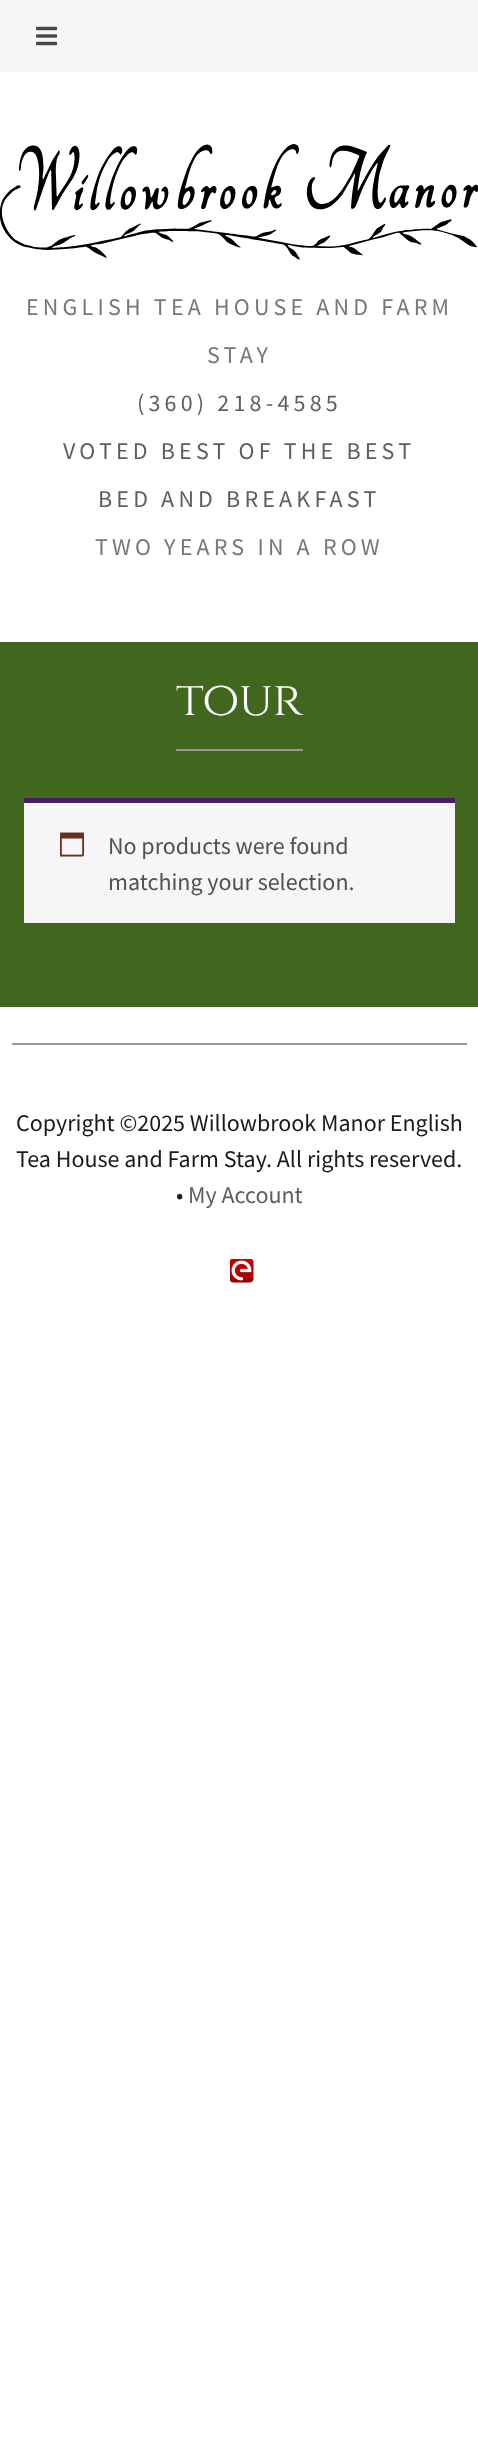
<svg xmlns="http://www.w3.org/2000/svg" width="478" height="2442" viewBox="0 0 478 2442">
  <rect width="100%" height="100%" fill="#fff"/>
  <path d="M0 0h478v72H0z" fill="#f6f6f6"/>
  <image x="36" y="26" width="21" height="20" href="img/1.png"/>
  <image x="0" y="144" width="478" height="116" href="img/2.png"/>
  <path d="M0 642h478v365H0z" fill="#40671d"/>
  <path d="M176 749h127v2H176z" fill="#999"/>
  <path d="M24 803h431v120H24z" fill="#f6f5f8"/>
  <path d="M24 798h431v5H24z" fill="#451d67"/>
  <image x="60" y="832" width="24" height="25" href="img/3.png"/>
  <path d="M12 1043h455v2H12z" fill="#999"/>
  <image x="230" y="1259" width="24" height="24" href="img/4.png"/>
  <g font-family="Source Sans Pro" font-size="24" letter-spacing="4.2" fill="#777">
    <text x="26" y="315">ENGLISH TEA HOUSE AND FARM</text>
    <text x="207" y="363">STAY</text>
  </g>
  <g font-family="Source Sans Pro" font-size="24" letter-spacing="4.2" fill="#5e5e5e">
    <text x="137" y="411">(360) 218-4585</text>
    <text x="63" y="459">VOTED BEST OF THE BEST</text>
    <text x="98" y="507">BED AND BREAKFAST</text>
  </g>
  <text x="95" y="555" font-family="Source Sans Pro" font-size="24" letter-spacing="4.2" fill="#777">TWO YEARS IN A ROW</text>
  <text x="176" y="715" font-family="Cinzel" font-size="48" fill="#fff">tour</text>
  <g font-family="Source Sans Pro" font-size="24" fill="#515151">
    <text x="108" y="854">No products were found</text>
    <text x="108" y="890">matching your selection.</text>
  </g>
  <g font-family="Source Sans Pro" font-size="24" fill="#1b1b1b">
    <text x="16" y="1131">Copyright ©2025 Willowbrook Manor English</text>
    <text x="16" y="1167">Tea House and Farm Stay. All rights reserved.</text>
    <text x="176" y="1203">•</text>
  </g>
  <text x="188" y="1203" font-family="Source Sans Pro" font-size="24" fill="#5e5e5e">My Account</text>
</svg>
